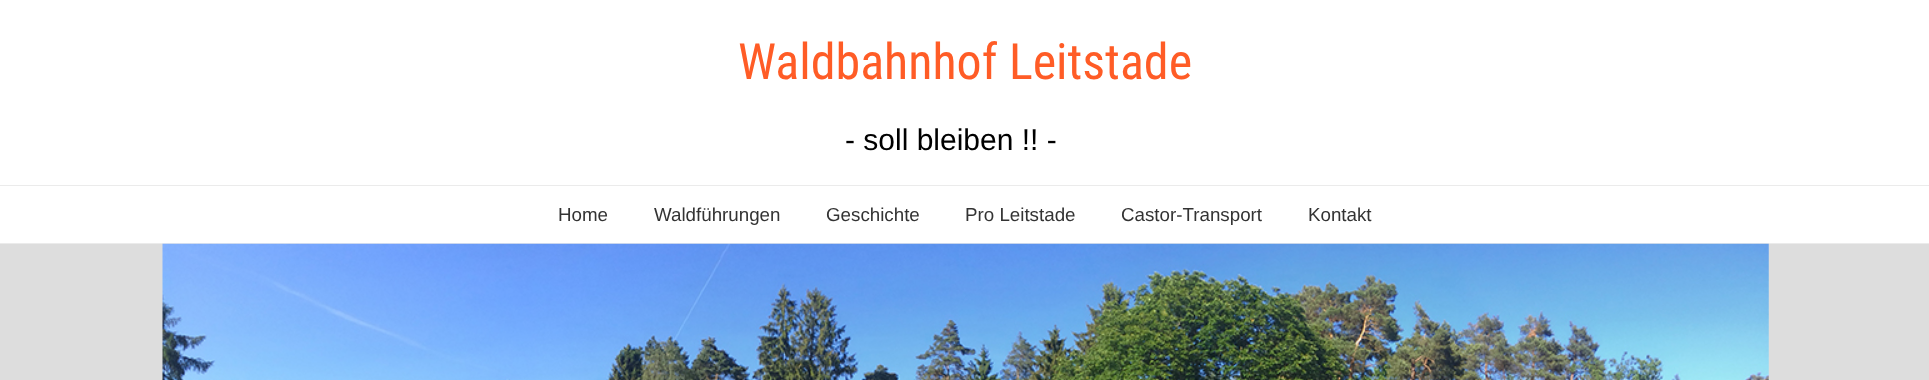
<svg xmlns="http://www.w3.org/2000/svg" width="1929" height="380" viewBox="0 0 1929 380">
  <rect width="100%" height="100%" fill="#fff"/>
  <path d="M0 185h1929v1H0z" fill="#ebebeb"/>
  <path d="M0 243h1929v1H0z" fill="#ebebeb"/>
  <path d="M0 244h1929v136H0z" fill="#ddd"/>
  <image x="162" y="243" width="1607" height="137" href="img/1.png"/>
  <text x="738" y="79" font-family="Roboto Condensed" font-size="50" fill="#ff5c26">Waldbahnhof Leitstade</text>
  <text x="845" y="150" font-family="Liberation Sans" font-size="30" fill="#000">- soll bleiben !! -</text>
  <g font-family="Liberation Sans" font-size="18.75" fill="#333">
    <text x="558" y="221">Home</text>
    <text x="654" y="221">Waldführungen</text>
    <text x="826" y="221">Geschichte</text>
    <text x="965" y="221">Pro Leitstade</text>
    <text x="1121" y="221">Castor-Transport</text>
    <text x="1308" y="221">Kontakt</text>
  </g>
</svg>
